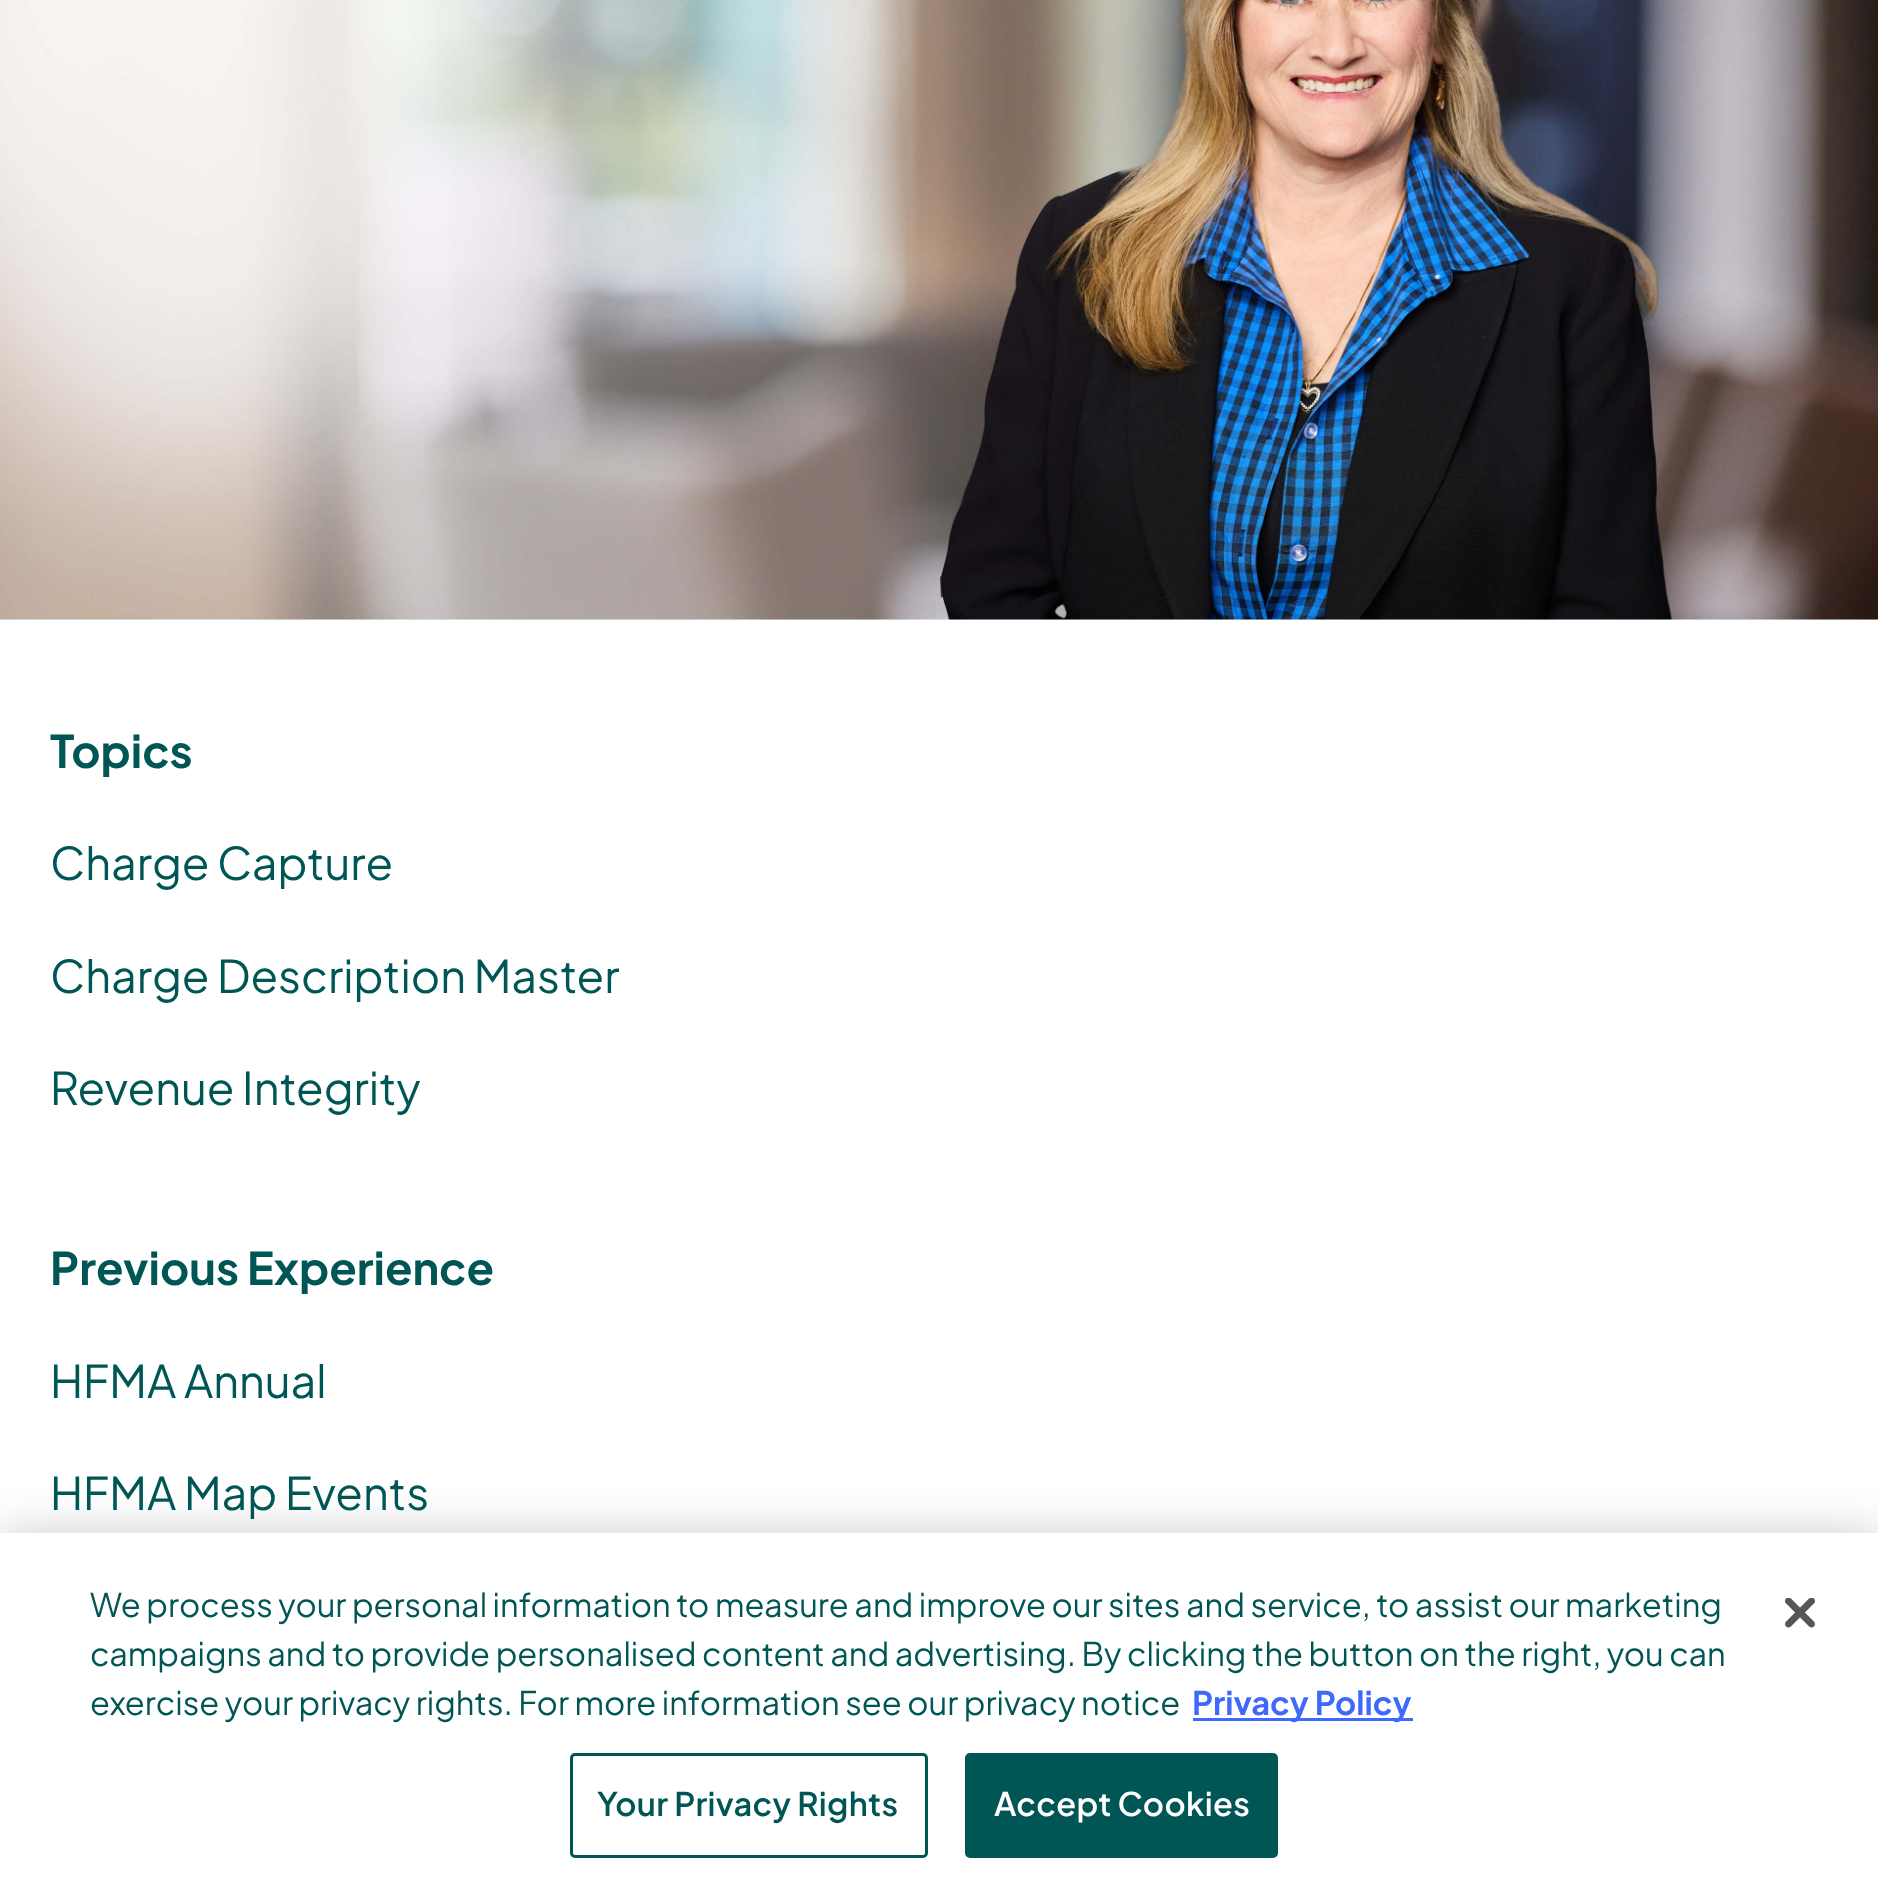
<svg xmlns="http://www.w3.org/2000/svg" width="1878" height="1897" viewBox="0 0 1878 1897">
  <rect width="100%" height="100%" fill="#fff"/>
  <path d="M0 619h1878v1H0z" fill="#ebfbf7"/>
  <image x="0" y="0" width="1878" height="620" href="img/1.png"/>
  <path d="M0 1533h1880v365H0z" fill="#00000033" filter="blur(22.5px)"/>
  <path d="M0 1533h1878v364H0z" fill="#fff"/>
  <path d="M1193 1718h220v3H1193z" fill="#3e69fa"/>
  <rect x="571.5" y="1754.5" width="355" height="102" rx="3.5" fill="none" stroke="#005654" stroke-width="3"/>
  <rect x="966.5" y="1754.5" width="310" height="102" rx="3.5" fill="#005654" stroke="#005654" stroke-width="3"/>
  <image x="1785" y="1598" width="30" height="30" href="img/2.png"/>
  <text x="50" y="768" font-family="Plus Jakarta Sans" font-size="45" font-weight="bold" fill="#005654">Topics</text>
  <g font-family="Plus Jakarta Sans" font-size="45" fill="#005654">
    <text x="50" y="880">Charge Capture</text>
    <text x="50" y="993">Charge Description Master</text>
    <text x="50" y="1105">Revenue Integrity</text>
  </g>
  <text x="50" y="1285" font-family="Plus Jakarta Sans" font-size="45" font-weight="bold" fill="#005654">Previous Experience</text>
  <g font-family="Plus Jakarta Sans" font-size="45" fill="#005654">
    <text x="50" y="1398">HFMA Annual</text>
    <text x="50" y="1510">HFMA Map Events</text>
  </g>
  <g font-family="Plus Jakarta Sans" font-size="32.52" fill="#005654">
    <text x="90" y="1617">We process your personal information to measure and improve our sites and service, to assist our marketing</text>
    <text x="90" y="1666">campaigns and to provide personalised content and advertising. By clicking the button on the right, you can</text>
    <text x="90" y="1715">exercise your privacy rights. For more information see our privacy notice</text>
  </g>
  <text x="1192" y="1715" font-family="Plus Jakarta Sans" font-size="32.52" font-weight="bold" fill="#3e69fa">Privacy Policy</text>
  <text x="597" y="1816" font-family="Plus Jakarta Sans" font-size="32.52" font-weight="600" letter-spacing="0.3" fill="#005654">Your Privacy Rights</text>
  <text x="994" y="1816" font-family="Plus Jakarta Sans" font-size="32.52" font-weight="600" letter-spacing="0.3" fill="#fff">Accept Cookies</text>
</svg>
